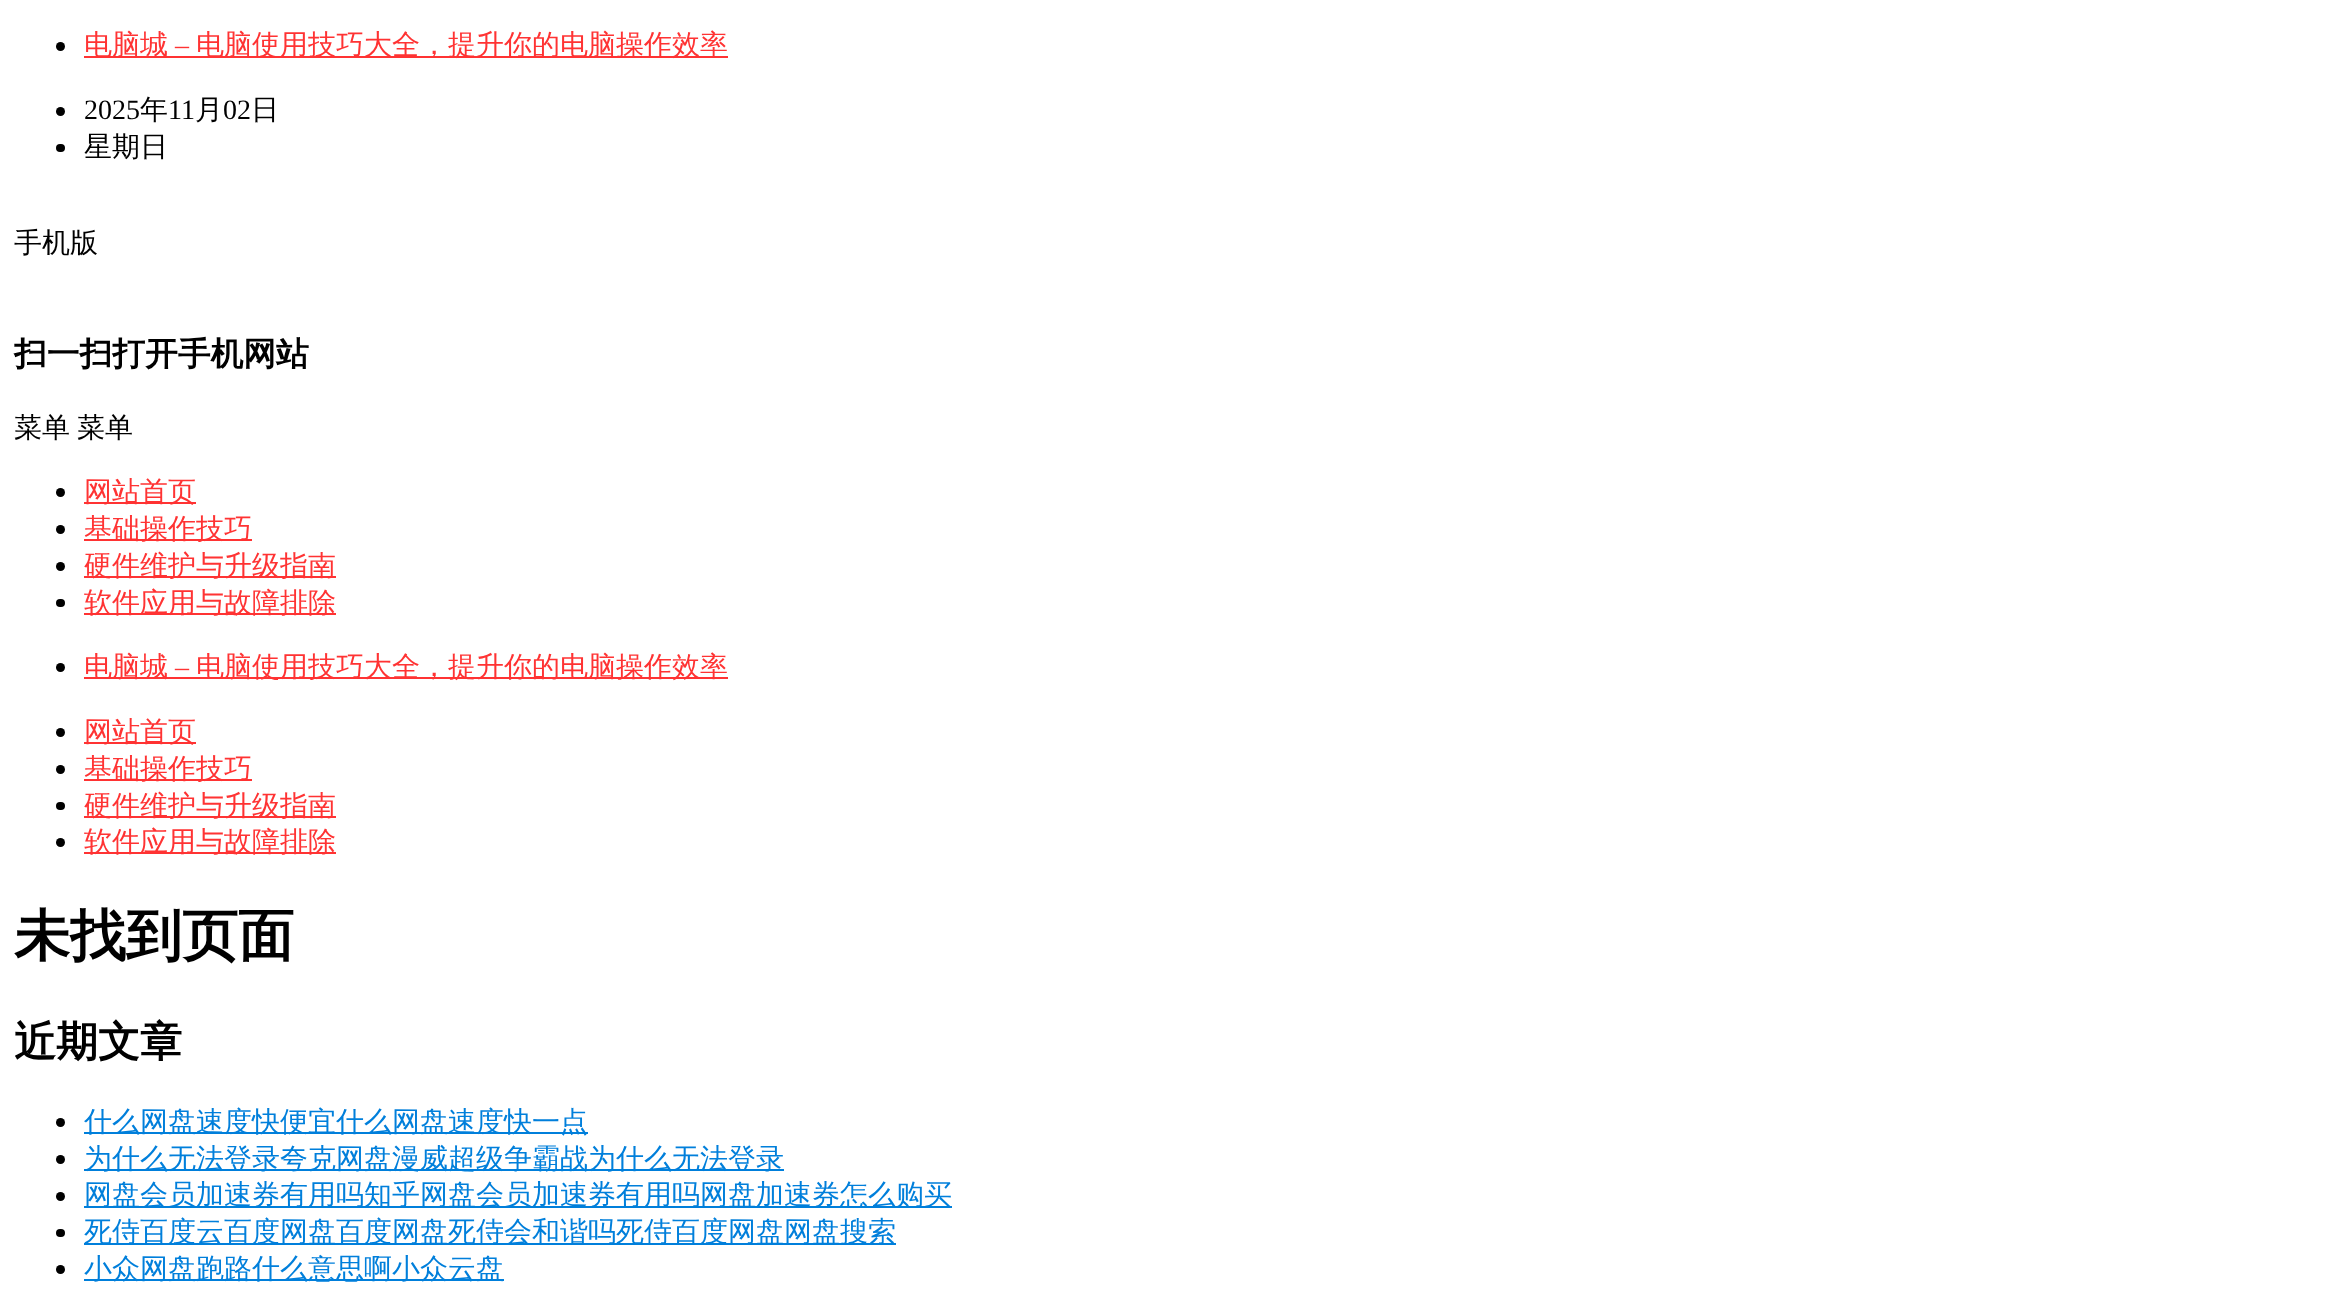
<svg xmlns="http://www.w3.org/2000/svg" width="2329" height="1313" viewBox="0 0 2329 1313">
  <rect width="100%" height="100%" fill="#fff"/>
  <circle cx="60.5" cy="46.5" r="4.5" fill="#000"/>
  <path d="M84 56h644v2H84z" fill="#f33"/>
  <circle cx="60.5" cy="111.5" r="4.5" fill="#000"/>
  <rect x="56" y="144" width="9" height="8" rx="4" fill="#000"/>
  <circle cx="60.5" cy="492.5" r="4.5" fill="#000"/>
  <path d="M84 502h112v2H84z" fill="#f33"/>
  <circle cx="60.5" cy="529.5" r="4.5" fill="#000"/>
  <path d="M84 539h168v2H84z" fill="#f33"/>
  <circle cx="60.5" cy="566.5" r="4.5" fill="#000"/>
  <path d="M84 576h252v2H84z" fill="#f33"/>
  <rect x="56" y="599" width="9" height="8" rx="4" fill="#000"/>
  <path d="M84 613h252v2H84z" fill="#f33"/>
  <circle cx="60.5" cy="667.5" r="4.5" fill="#000"/>
  <path d="M84 677h644v2H84z" fill="#f33"/>
  <circle cx="60.5" cy="732.5" r="4.5" fill="#000"/>
  <path d="M84 742h112v2H84z" fill="#f33"/>
  <circle cx="60.5" cy="769.5" r="4.5" fill="#000"/>
  <path d="M84 779h168v2H84z" fill="#f33"/>
  <rect x="56" y="802" width="9" height="8" rx="4" fill="#000"/>
  <path d="M84 816h252v2H84z" fill="#f33"/>
  <circle cx="60.5" cy="842.5" r="4.5" fill="#000"/>
  <path d="M84 852h252v2H84z" fill="#f33"/>
  <circle cx="60.5" cy="1122.5" r="4.5" fill="#000"/>
  <path d="M84 1132h504v2H84z" fill="#007fdb"/>
  <circle cx="60.5" cy="1159.5" r="4.5" fill="#000"/>
  <path d="M84 1169h700v2H84z" fill="#007fdb"/>
  <circle cx="60.5" cy="1196.5" r="4.5" fill="#000"/>
  <path d="M84 1206h868v2H84z" fill="#007fdb"/>
  <rect x="56" y="1229" width="9" height="8" rx="4" fill="#000"/>
  <path d="M84 1243h812v2H84z" fill="#007fdb"/>
  <circle cx="60.5" cy="1269.5" r="4.5" fill="#000"/>
  <path d="M84 1279h420v2H84z" fill="#007fdb"/>
  <text x="84" y="54" font-family="WenQuanYi Zen Hei" font-size="28" font-weight="500" fill="#f33">电脑城</text>
  <text x="175" y="54" font-family="Liberation Serif" font-size="28" fill="#f33">–</text>
  <text x="196" y="54" font-family="WenQuanYi Zen Hei" font-size="28" font-weight="500" fill="#f33">电脑使用技巧大全，提升你的电脑操作效率</text>
  <text x="84" y="119" font-family="Liberation Serif" font-size="28" fill="#000">2025</text>
  <text x="140" y="119" font-family="WenQuanYi Zen Hei" font-size="28" font-weight="500" fill="#000">年</text>
  <text x="168" y="119" font-family="Liberation Serif" font-size="28" fill="#000">11</text>
  <text x="195" y="119" font-family="WenQuanYi Zen Hei" font-size="28" font-weight="500" fill="#000">月</text>
  <text x="223" y="119" font-family="Liberation Serif" font-size="28" fill="#000">02</text>
  <g font-family="WenQuanYi Zen Hei" font-size="28" font-weight="500" fill="#000">
    <text x="251" y="119">日</text>
    <text x="84" y="156">星期日</text>
    <text x="14" y="252">手机版</text>
  </g>
  <text x="14" y="365" font-family="WenQuanYi Zen Hei" font-size="32.75" font-weight="bold" fill="#000">扫一扫打开手机网站</text>
  <g font-family="WenQuanYi Zen Hei" font-size="28" font-weight="500" fill="#000">
    <text x="14" y="437">菜单</text>
    <text x="77" y="437">菜单</text>
  </g>
  <g font-family="WenQuanYi Zen Hei" font-size="28" font-weight="500" fill="#f33">
    <text x="84" y="501">网站首页</text>
    <text x="84" y="538">基础操作技巧</text>
    <text x="84" y="575">硬件维护与升级指南</text>
    <text x="84" y="612">软件应用与故障排除</text>
    <text x="84" y="676">电脑城</text>
  </g>
  <text x="175" y="676" font-family="Liberation Serif" font-size="28" fill="#f33">–</text>
  <g font-family="WenQuanYi Zen Hei" font-size="28" font-weight="500" fill="#f33">
    <text x="196" y="676">电脑使用技巧大全，提升你的电脑操作效率</text>
    <text x="84" y="741">网站首页</text>
    <text x="84" y="778">基础操作技巧</text>
    <text x="84" y="815">硬件维护与升级指南</text>
    <text x="84" y="851">软件应用与故障排除</text>
  </g>
  <text x="14" y="955" font-family="WenQuanYi Zen Hei" font-size="56" font-weight="bold" fill="#000">未找到页面</text>
  <text x="14" y="1056" font-family="WenQuanYi Zen Hei" font-size="42" font-weight="bold" fill="#000">近期文章</text>
  <g font-family="WenQuanYi Zen Hei" font-size="28" font-weight="500" fill="#007fdb">
    <text x="84" y="1131">什么网盘速度快便宜什么网盘速度快一点</text>
    <text x="84" y="1168">为什么无法登录夸克网盘漫威超级争霸战为什么无法登录</text>
    <text x="84" y="1204">网盘会员加速券有用吗知乎网盘会员加速券有用吗网盘加速券怎么购买</text>
    <text x="84" y="1241">死侍百度云百度网盘百度网盘死侍会和谐吗死侍百度网盘网盘搜索</text>
    <text x="84" y="1278">小众网盘跑路什么意思啊小众云盘</text>
  </g>
</svg>
